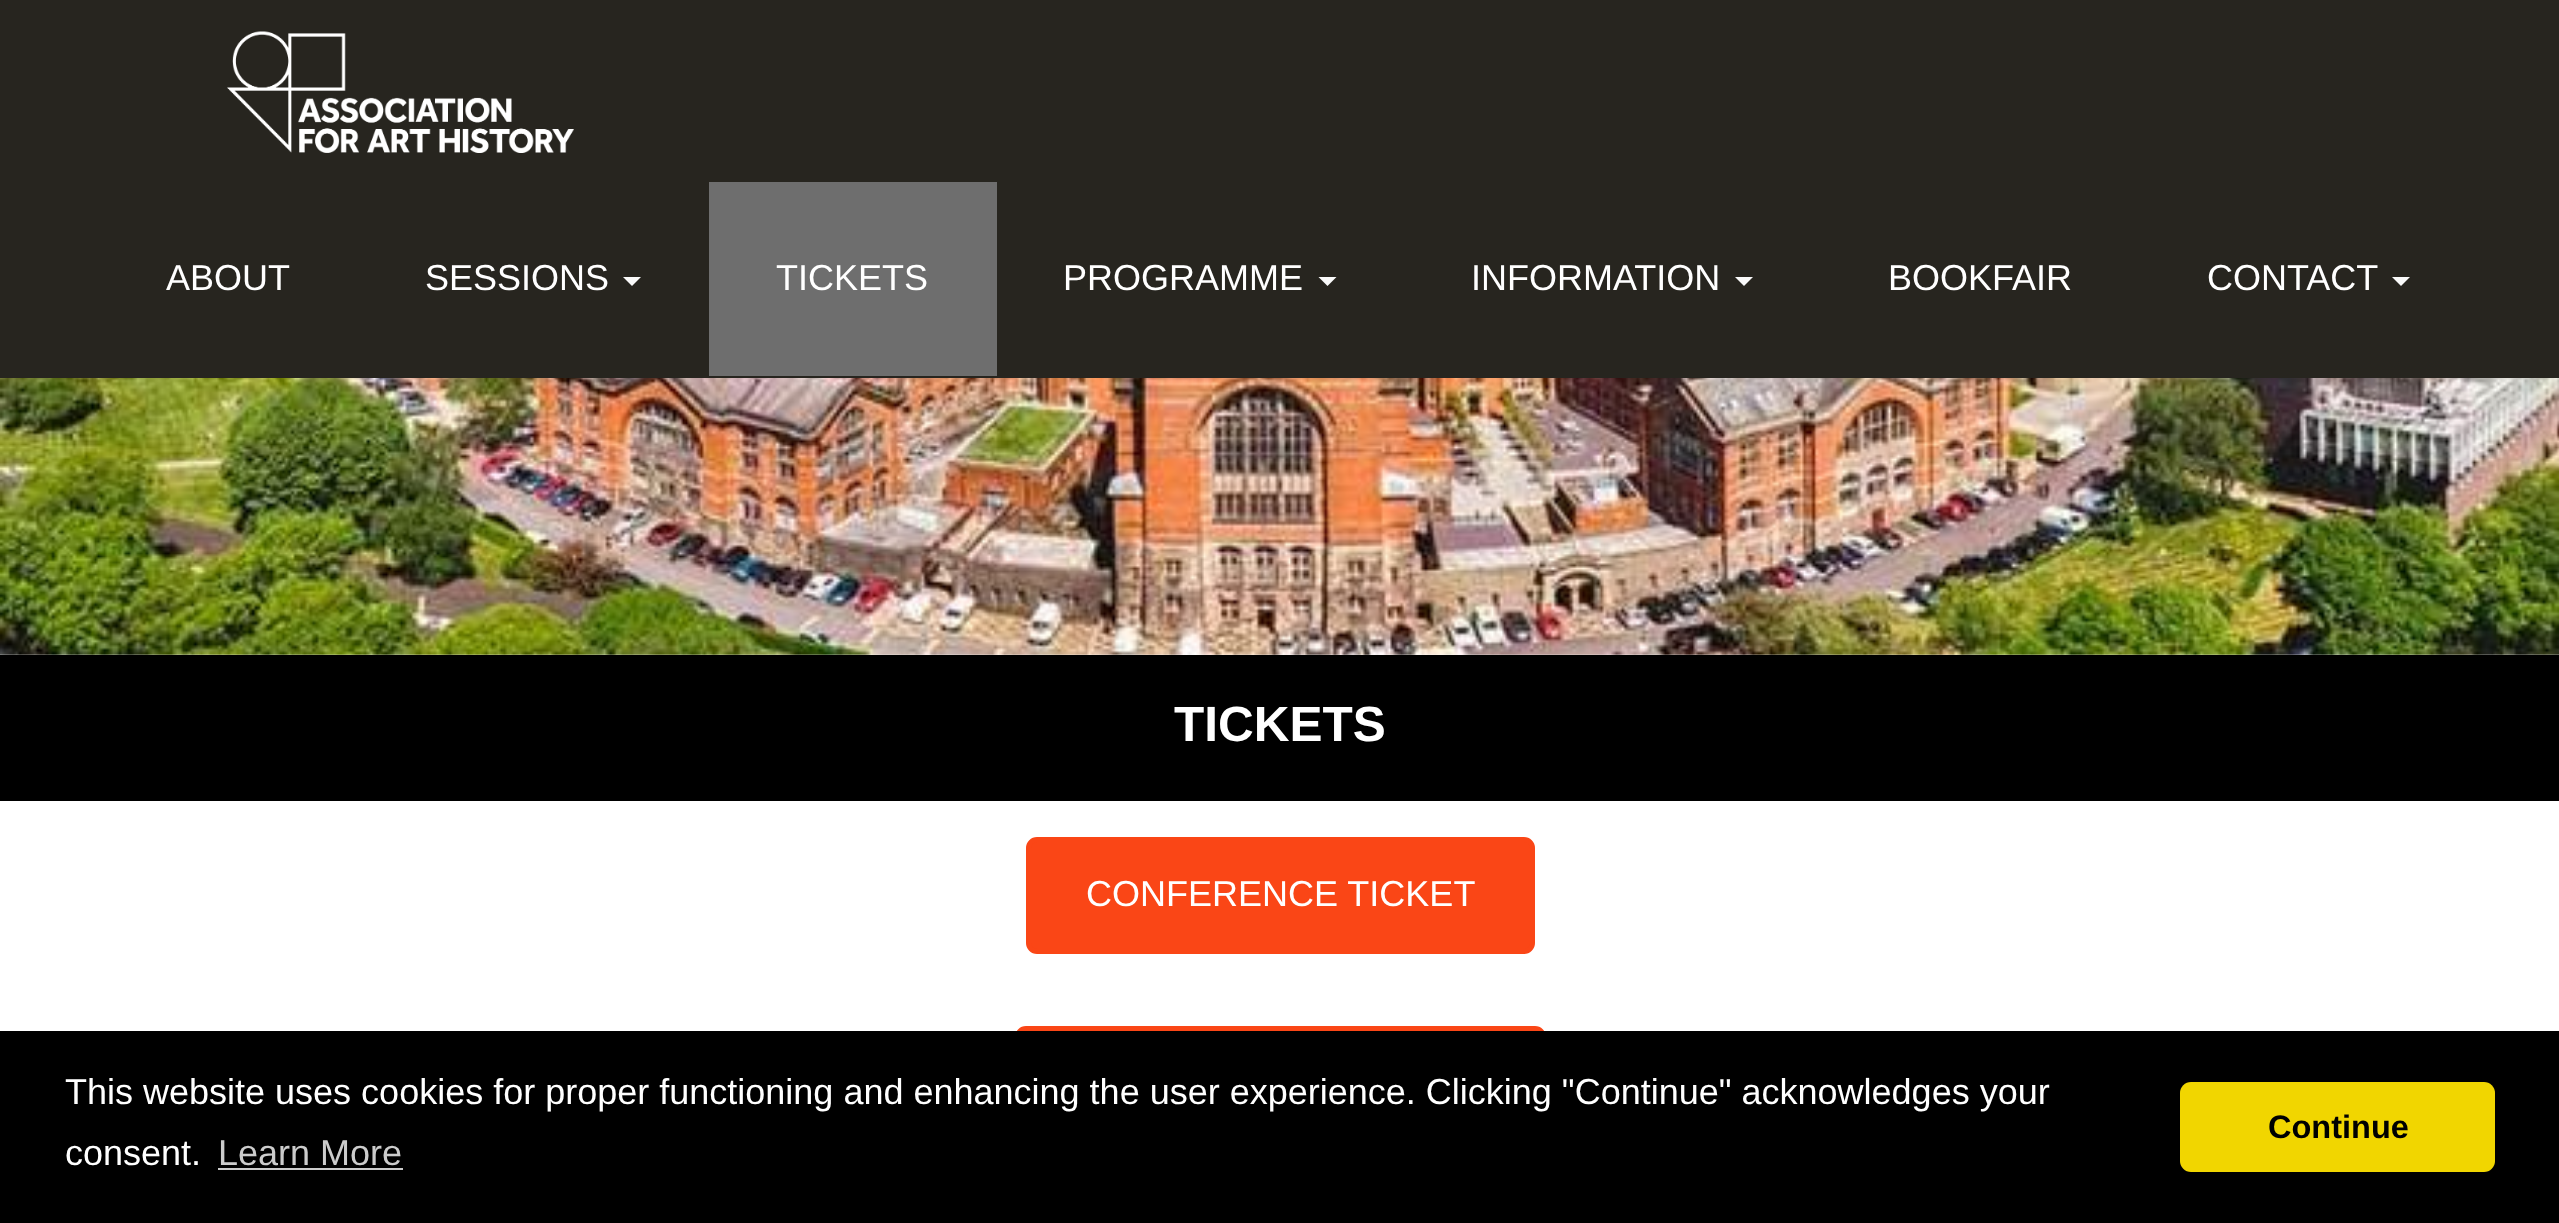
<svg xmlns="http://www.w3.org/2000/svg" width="2559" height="1223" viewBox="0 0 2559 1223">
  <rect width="100%" height="100%" fill="#fff"/>
  <path d="M0 0h2559v378H0z" fill="#27251f"/>
  <image x="227" y="31" width="347" height="122" href="img/1.png"/>
  <path d="M623 277H641L632 286Z" fill="#fafafa"/>
  <path d="M709 182h288v194H709z" fill="#6e6e6e"/>
  <path d="M1318.5 277H1336.5L1327.5 286Z" fill="#fafafa"/>
  <path d="M1735 277H1753L1744 286Z" fill="#fafafa"/>
  <path d="M2392 277H2410L2401 286Z" fill="#fafafa"/>
  <image x="0" y="378" width="2559" height="277" href="img/2.png"/>
  <path d="M0 655h2559v146H0z" fill="#000"/>
  <rect x="1028.5" y="839.5" width="504" height="112" rx="8.5" fill="#fa4616" stroke="#fa4616" stroke-width="5"/>
  <rect x="1017.5" y="1028.5" width="526" height="112" rx="8.5" fill="none" stroke="#fa4616" stroke-width="5"/>
  <path d="M0 1031h2559v192H0z" fill="#000"/>
  <path d="M218 1168h185v2H218z" fill="#ccc"/>
  <rect x="2180" y="1082" width="315" height="90" rx="11" fill="#f1d600"/>
  <g font-family="Liberation Sans" font-size="36" fill="#fff">
    <text x="166" y="290">ABOUT</text>
    <text x="425" y="290">SESSIONS</text>
    <text x="776" y="290">TICKETS</text>
    <text x="1063" y="290">PROGRAMME</text>
    <text x="1471" y="290">INFORMATION</text>
    <text x="1888" y="290">BOOKFAIR</text>
    <text x="2207" y="290">CONTACT</text>
  </g>
  <text x="1174" y="741" font-family="Liberation Sans" font-size="49.5" font-weight="bold" fill="#fff">TICKETS</text>
  <g font-family="Liberation Sans" font-size="36" fill="#fff">
    <text x="1086" y="906">CONFERENCE TICKET</text>
    <text x="65" y="1104">This website uses cookies for proper functioning and enhancing the user experience. Clicking "Continue" acknowledges your</text>
    <text x="65" y="1165">consent.</text>
  </g>
  <text x="218" y="1165" font-family="Liberation Sans" font-size="36" fill="#ccc">Learn More</text>
  <text x="2268" y="1138" font-family="Liberation Sans" font-size="32.5" font-weight="bold" fill="#000">Continue</text>
</svg>
